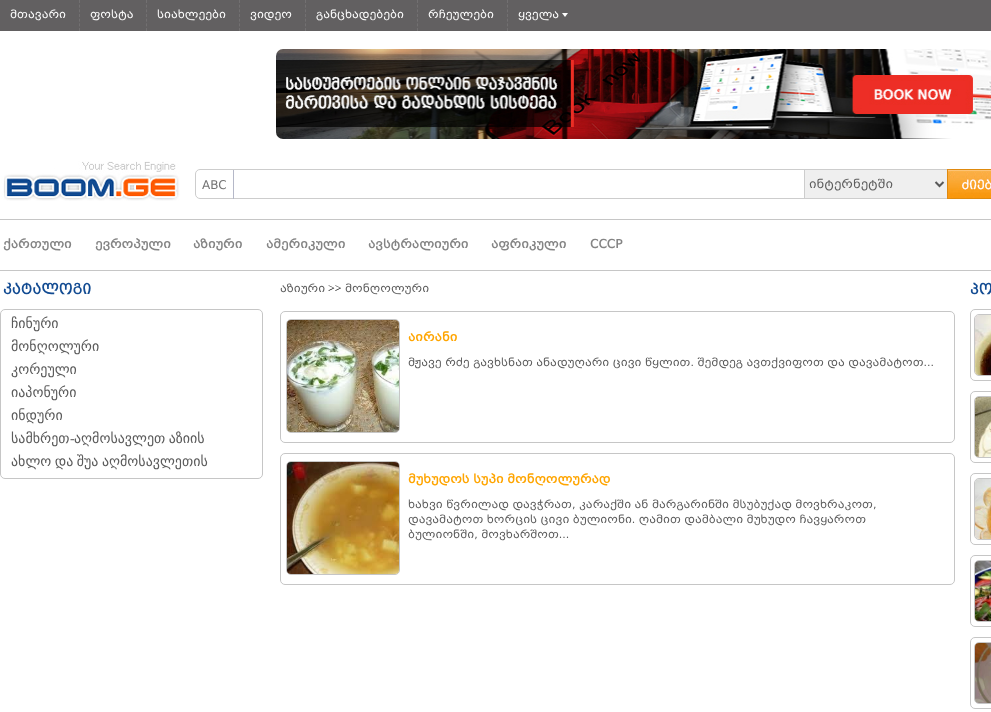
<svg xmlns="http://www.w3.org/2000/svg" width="991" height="712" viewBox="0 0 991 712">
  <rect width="100%" height="100%" fill="#fff"/>
  <path d="M0 0h991v31H0z" fill="#626061"/>
  <path d="M79.5 0V31" fill="none" stroke="#727071" stroke-dasharray="3 1.67"/>
  <path d="M146.5 0V31" fill="none" stroke="#727071" stroke-dasharray="3 1.67"/>
  <path d="M239.5 0V31" fill="none" stroke="#727071" stroke-dasharray="3 1.67"/>
  <path d="M305.5 0V31" fill="none" stroke="#727071" stroke-dasharray="3 1.67"/>
  <path d="M417.5 0V31" fill="none" stroke="#727071" stroke-dasharray="3 1.67"/>
  <path d="M507.5 0V31" fill="none" stroke="#727071" stroke-dasharray="3 1.67"/>
  <path d="M562 13H568L565 17Z" fill="#fefefe"/>
  <image x="276" y="49" width="715" height="90" href="img/1.png"/>
  <image x="1" y="161" width="179" height="40" href="img/2.png"/>
  <rect x="195.5" y="169.5" width="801" height="29" rx="4.5" fill="none" stroke="#cdcdcd"/>
  <path d="M233 170h1v29H233z" fill="#b5b8c8"/>
  <path d="M804 170h1v28H804z" fill="#cdcdcd"/>
  <path d="M805 170h142v28H805z" fill="#efefef"/>
  <path d="M935.5 182L939.5 186L943.5 182" fill="none" stroke="#595959" stroke-width="2"/>
  <image x="947" y="169" width="44" height="30" href="img/3.png"/>
  <path d="M0 219h991v1H0z" fill="#c6c6c6"/>
  <path d="M0 270h991v1H0z" fill="#c6c6c6"/>
  <rect x="0.5" y="309.5" width="262" height="169" rx="4.5" fill="none" stroke="#c6c6c6"/>
  <rect x="280.5" y="311.5" width="674" height="131" rx="4.5" fill="none" stroke="#c6c6c6"/>
  <rect x="286.5" y="319.5" width="113" height="113" rx="4.5" fill="none" stroke="#c6c6c6"/>
  <image x="287" y="320" width="112" height="112" href="img/4.png"/>
  <rect x="280.5" y="453.5" width="674" height="131" rx="4.5" fill="none" stroke="#c6c6c6"/>
  <rect x="286.5" y="461.5" width="113" height="113" rx="4.5" fill="none" stroke="#c6c6c6"/>
  <image x="287" y="462" width="112" height="112" href="img/5.png"/>
  <rect x="970.5" y="309.5" width="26" height="71" rx="4.5" fill="none" stroke="#c6c6c6"/>
  <rect x="974.5" y="314.5" width="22" height="61" rx="4.5" fill="none" stroke="#c6c6c6"/>
  <image x="975" y="315" width="16" height="60" href="img/6.png"/>
  <rect x="970.5" y="391.5" width="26" height="71" rx="4.5" fill="none" stroke="#c6c6c6"/>
  <rect x="974.5" y="396.5" width="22" height="61" rx="4.5" fill="none" stroke="#c6c6c6"/>
  <image x="975" y="397" width="16" height="60" href="img/7.png"/>
  <rect x="970.5" y="473.5" width="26" height="71" rx="4.5" fill="none" stroke="#c6c6c6"/>
  <rect x="974.5" y="478.5" width="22" height="61" rx="4.5" fill="none" stroke="#c6c6c6"/>
  <image x="975" y="479" width="16" height="60" href="img/8.png"/>
  <rect x="970.5" y="555.5" width="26" height="71" rx="4.5" fill="none" stroke="#c6c6c6"/>
  <rect x="974.5" y="560.5" width="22" height="61" rx="4.5" fill="none" stroke="#c6c6c6"/>
  <image x="975" y="561" width="16" height="60" href="img/9.png"/>
  <rect x="970.5" y="637.5" width="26" height="71" rx="4.5" fill="none" stroke="#c6c6c6"/>
  <rect x="974.5" y="642.5" width="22" height="61" rx="4.5" fill="none" stroke="#c6c6c6"/>
  <image x="975" y="643" width="16" height="60" href="img/10.png"/>
  <g font-family="'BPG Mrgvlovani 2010'" font-size="11" fill="#fefefe">
    <text x="10" y="18">მთავარი</text>
    <text x="90" y="18">ფოსტა</text>
    <text x="157" y="18">სიახლეები</text>
    <text x="250" y="18">ვიდეო</text>
    <text x="316" y="18">განცხადებები</text>
    <text x="428" y="18">რჩეულები</text>
    <text x="518" y="18">ყველა</text>
  </g>
  <text x="202" y="189" font-family="'BPG Mrgvlovani 2010'" font-size="12" fill="#747474">ABC</text>
  <text x="809" y="188" font-family="'BPG Mrgvlovani 2010'" font-size="12" fill="#5c5c5c">ინტერნეტში</text>
  <g font-family="'BPG Mrgvlovani 2010'" font-size="12" font-weight="bold" fill="#848484">
    <text x="3" y="248">ქართული</text>
    <text x="95" y="248">ევროპული</text>
    <text x="193" y="248">აზიური</text>
    <text x="266" y="248">ამერიკული</text>
    <text x="368" y="248">ავსტრალიური</text>
    <text x="491" y="248">აფრიკული</text>
    <text x="590" y="248">СССР</text>
  </g>
  <text x="3" y="294" font-family="'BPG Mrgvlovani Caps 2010'" font-size="14" font-weight="bold" fill="#124b92">კატალოგი</text>
  <g font-family="DejaVu Sans" font-size="14" fill="#5c5c5c">
    <text x="11" y="328">ჩინური</text>
    <text x="11" y="351">მონღოლური</text>
    <text x="11" y="374">კორეული</text>
    <text x="11" y="397">იაპონური</text>
    <text x="11" y="420">ინდური</text>
    <text x="11" y="443">სამხრეთ</text>
  </g>
  <text x="70" y="443" font-family="Liberation Serif" font-size="14" fill="#5c5c5c">-</text>
  <g font-family="DejaVu Sans" font-size="14" fill="#5c5c5c">
    <text x="74" y="443" word-spacing="-1">აღმოსავლეთ აზიის</text>
    <text x="11" y="466" word-spacing="-1">ახლო და შუა აღმოსავლეთის</text>
  </g>
  <text x="280" y="292" font-family="'BPG Mrgvlovani 2010'" font-size="11" fill="#5c5c5c">აზიური</text>
  <text x="328" y="292" font-family="Liberation Serif" font-size="12" fill="#000">&gt;&gt;</text>
  <text x="345" y="292" font-family="'BPG Mrgvlovani 2010'" font-size="11" fill="#5c5c5c">მონღოლური</text>
  <text x="408" y="341" font-family="'BPG Mrgvlovani 2010'" font-size="12" font-weight="bold" fill="#ffa500">აირანი</text>
  <text x="408" y="366" font-family="'BPG Mrgvlovani 2010'" font-size="11" fill="#5c5c5c">მჟავე რძე გავხსნათ ანადუღარი ცივი წყლით. შემდეგ ავთქვიფოთ და დავამატოთ...</text>
  <text x="408" y="483" font-family="'BPG Mrgvlovani 2010'" font-size="12" font-weight="bold" fill="#ffa500">მუხუდოს სუპი მონღოლურად</text>
  <g font-family="'BPG Mrgvlovani 2010'" font-size="11" fill="#5c5c5c">
    <text x="408" y="508">ხახვი წვრილად დავჭრათ, კარაქში ან მარგარინში მსუბუქად მოვხრაკოთ,</text>
    <text x="408" y="523">დავამატოთ ხორცის ცივი ბულიონი. ღამით დამბალი მუხუდო ჩავყაროთ</text>
    <text x="408" y="538">ბულიონში, მოვხარშოთ...</text>
  </g>
  <text x="970" y="294" font-family="'BPG Mrgvlovani Caps 2010'" font-size="14" font-weight="bold" fill="#124b92">პო</text>
</svg>
